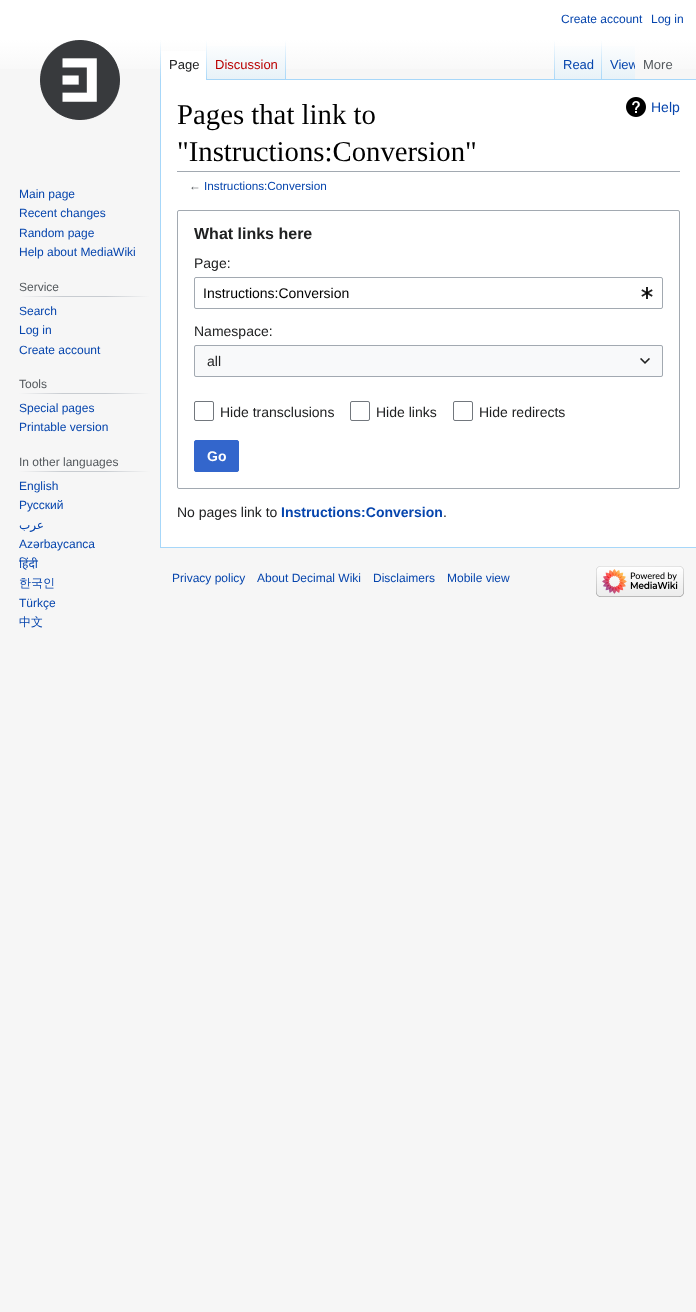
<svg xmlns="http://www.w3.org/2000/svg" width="696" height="1312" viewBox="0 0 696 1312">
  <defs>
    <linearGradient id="g1" gradientUnits="userSpaceOnUse" x1="348" y1="0" x2="348" y2="80"><stop offset="0.5" stop-color="#fff"/><stop offset="1" stop-color="#f6f6f6"/></linearGradient>
    <linearGradient id="g2" gradientUnits="userSpaceOnUse" x1="161" y1="40" x2="161" y2="80"><stop offset="0" stop-color="#a7d7f9" stop-opacity="0"/><stop offset="1" stop-color="#a7d7f9"/></linearGradient>
    <linearGradient id="g3" gradientUnits="userSpaceOnUse" x1="207" y1="40" x2="207" y2="80"><stop offset="0" stop-color="#fff"/><stop offset="1" stop-color="#a7d7f9"/></linearGradient>
    <linearGradient id="g4" gradientUnits="userSpaceOnUse" x1="247" y1="80" x2="247" y2="40"><stop offset="0" stop-color="#77c1f6"/><stop offset="0.03" stop-color="#e8f2f8"/><stop offset="1" stop-color="#fff"/></linearGradient>
    <linearGradient id="g5" gradientUnits="userSpaceOnUse" x1="286" y1="40" x2="286" y2="80"><stop offset="0" stop-color="#a7d7f9" stop-opacity="0"/><stop offset="1" stop-color="#a7d7f9"/></linearGradient>
    <linearGradient id="g6" gradientUnits="userSpaceOnUse" x1="555" y1="40" x2="555" y2="80"><stop offset="0" stop-color="#a7d7f9" stop-opacity="0"/><stop offset="1" stop-color="#a7d7f9"/></linearGradient>
    <linearGradient id="g7" gradientUnits="userSpaceOnUse" x1="579" y1="80" x2="579" y2="40"><stop offset="0" stop-color="#77c1f6"/><stop offset="0.03" stop-color="#e8f2f8"/><stop offset="1" stop-color="#fff"/></linearGradient>
    <linearGradient id="g8" gradientUnits="userSpaceOnUse" x1="602" y1="40" x2="602" y2="80"><stop offset="0" stop-color="#a7d7f9" stop-opacity="0"/><stop offset="1" stop-color="#a7d7f9"/></linearGradient>
    <linearGradient id="g9" gradientUnits="userSpaceOnUse" x1="619" y1="80" x2="619" y2="40"><stop offset="0" stop-color="#77c1f6"/><stop offset="0.03" stop-color="#e8f2f8"/><stop offset="1" stop-color="#fff"/></linearGradient>
    <linearGradient id="g10" gradientUnits="userSpaceOnUse" x1="19" y1="297" x2="150" y2="297"><stop offset="0" stop-color="#f6f6f6"/><stop offset="0.33" stop-color="#c8ccd1"/><stop offset="0.66" stop-color="#c8ccd1"/><stop offset="1" stop-color="#f6f6f6"/></linearGradient>
    <linearGradient id="g11" gradientUnits="userSpaceOnUse" x1="19" y1="394" x2="150" y2="394"><stop offset="0" stop-color="#f6f6f6"/><stop offset="0.33" stop-color="#c8ccd1"/><stop offset="0.66" stop-color="#c8ccd1"/><stop offset="1" stop-color="#f6f6f6"/></linearGradient>
    <linearGradient id="g12" gradientUnits="userSpaceOnUse" x1="19" y1="472" x2="150" y2="472"><stop offset="0" stop-color="#f6f6f6"/><stop offset="0.33" stop-color="#c8ccd1"/><stop offset="0.66" stop-color="#c8ccd1"/><stop offset="1" stop-color="#f6f6f6"/></linearGradient>
    <clipPath id="clip1"><path d="M602 40h33v40H602z"/></clipPath>
  </defs>
  <rect width="100%" height="100%" fill="#f6f6f6"/>
  <path d="M0 0h696v69H0z" fill="url(#g1)"/>
  <path d="M160 547h536v1H160z" fill="#a7d7f9"/>
  <path d="M160 79h1v469H160z" fill="#a7d7f9"/>
  <path d="M160 40h1v40H160z" fill="url(#g2)"/>
  <path d="M161 51h45v29H161z" fill="#fff"/>
  <path d="M206 40h1v40H206z" fill="url(#g3)"/>
  <path d="M207 46h79v34H207z" fill="url(#g4)"/>
  <path d="M285 40h1v40H285z" fill="url(#g5)"/>
  <path d="M286 79h410v1H286z" fill="#a7d7f9"/>
  <path d="M554 40h1v40H554z" fill="url(#g6)"/>
  <path d="M555 46h47v33H555z" fill="url(#g7)"/>
  <path d="M601 40h1v40H601z" fill="url(#g8)"/>
  <path d="M602 46h33v33H602z" fill="url(#g9)"/>
  <image x="40" y="40" width="80" height="80" href="img/1.png"/>
  <path d="M19 296h131v1H19z" fill="url(#g10)"/>
  <path d="M19 393h131v1H19z" fill="url(#g11)"/>
  <path d="M19 471h131v1H19z" fill="url(#g12)"/>
  <path d="M161 80h535v467H161z" fill="#fff"/>
  <path d="M177 171h503v1H177z" fill="#a2a9b1"/>
  <image x="626" y="97" width="20" height="20" href="img/2.png"/>
  <rect x="177.5" y="210.5" width="502" height="278" rx="1.5" fill="none" stroke="#a2a9b1"/>
  <rect x="194.5" y="277.5" width="468" height="31" rx="1.5" fill="none" stroke="#a2a9b1"/>
  <image x="641" y="287" width="12" height="12" href="img/3.png"/>
  <path d="M194 345h469v32H194z" fill="#f8f9fa"/>
  <rect x="194.5" y="345.5" width="468" height="31" rx="1.5" fill="none" stroke="#a2a9b1"/>
  <image x="640" y="358" width="10" height="6" href="img/4.png"/>
  <rect x="194.5" y="401.5" width="19" height="19" rx="1.5" fill="none" stroke="#72777d"/>
  <rect x="350.5" y="401.5" width="19" height="19" rx="1.5" fill="none" stroke="#72777d"/>
  <rect x="453.5" y="401.5" width="19" height="19" rx="1.5" fill="none" stroke="#72777d"/>
  <rect x="194.5" y="440.5" width="44" height="31" rx="1.5" fill="#36c" stroke="#36c"/>
  <image x="596" y="566" width="88" height="31" href="img/5.png"/>
  <g font-family="Liberation Sans" font-size="12" fill="#0645ad">
    <text x="561" y="23">Create account</text>
    <text x="651" y="23">Log in</text>
  </g>
  <text x="169" y="69" font-family="Liberation Sans" font-size="13" fill="#202122">Page</text>
  <text x="215" y="69" font-family="Liberation Sans" font-size="13" fill="#ba0000">Discussion</text>
  <text x="563" y="69" font-family="Liberation Sans" font-size="13" fill="#0645ad">Read</text>
  <g clip-path="url(#clip1)">
    <text x="610" y="69" font-family="Liberation Sans" font-size="13" fill="#0645ad">View</text>
  </g>
  <text x="643" y="69" font-family="Liberation Sans" font-size="13" fill="#54595d">More</text>
  <g font-family="Liberation Sans" font-size="12" fill="#0645ad">
    <text x="19" y="198">Main page</text>
    <text x="19" y="217">Recent changes</text>
    <text x="19" y="237">Random page</text>
    <text x="19" y="256">Help about MediaWiki</text>
  </g>
  <text x="19" y="291" font-family="Liberation Sans" font-size="12" fill="#54595d">Service</text>
  <g font-family="Liberation Sans" font-size="12" fill="#0645ad">
    <text x="19" y="315">Search</text>
    <text x="19" y="334">Log in</text>
    <text x="19" y="354">Create account</text>
  </g>
  <text x="19" y="388" font-family="Liberation Sans" font-size="12" fill="#54595d">Tools</text>
  <g font-family="Liberation Sans" font-size="12" fill="#0645ad">
    <text x="19" y="412">Special pages</text>
    <text x="19" y="431">Printable version</text>
  </g>
  <text x="19" y="466" font-family="Liberation Sans" font-size="12" fill="#54595d">In other languages</text>
  <g font-family="Liberation Sans" font-size="12" fill="#0645ad">
    <text x="19" y="490">English</text>
    <text x="19" y="509">Русский</text>
  </g>
  <text x="44" y="529" font-family="DejaVu Sans" font-size="12" direction="rtl" fill="#0645ad">عرب</text>
  <text x="19" y="548" font-family="Liberation Sans" font-size="12" fill="#0645ad">Azərbaycanca</text>
  <text x="19" y="568" font-family="Noto Sans" font-size="12" fill="#0645ad">हिंदी</text>
  <text x="19" y="587" font-family="WenQuanYi Zen Hei" font-size="12" font-weight="500" fill="#0645ad">한국인</text>
  <text x="19" y="607" font-family="Liberation Sans" font-size="12" fill="#0645ad">Türkçe</text>
  <text x="19" y="626" font-family="WenQuanYi Zen Hei" font-size="12" font-weight="500" fill="#0645ad">中文</text>
  <g font-family="Liberation Serif" font-size="28.75" fill="#000">
    <text x="177" y="124">Pages that link to</text>
    <text x="177" y="161">"Instructions:Conversion"</text>
  </g>
  <text x="651" y="112" font-family="Liberation Sans" font-size="14" fill="#0645ad">Help</text>
  <text x="189" y="190" font-family="Liberation Sans" font-size="11.75" fill="#54595d">←</text>
  <text x="204" y="190" font-family="Liberation Sans" font-size="11.75" fill="#0645ad">Instructions:Conversion</text>
  <text x="194" y="239" font-family="Liberation Sans" font-size="16" font-weight="bold" fill="#202122">What links here</text>
  <text x="194" y="268" font-family="Liberation Sans" font-size="14" fill="#202122">Page:</text>
  <text x="203" y="298" font-family="Liberation Sans" font-size="14" fill="#000">Instructions:Conversion</text>
  <g font-family="Liberation Sans" font-size="14" fill="#202122">
    <text x="194" y="336">Namespace:</text>
    <text x="207" y="366">all</text>
    <text x="220" y="417">Hide transclusions</text>
    <text x="376" y="417">Hide links</text>
    <text x="479" y="417">Hide redirects</text>
  </g>
  <text x="207" y="461" font-family="Liberation Sans" font-size="14" font-weight="bold" fill="#fff">Go</text>
  <text x="177" y="517" font-family="Liberation Sans" font-size="14" fill="#202122">No pages link to</text>
  <text x="281" y="517" font-family="Liberation Sans" font-size="14" font-weight="bold" fill="#0645ad">Instructions:Conversion</text>
  <text x="443" y="517" font-family="Liberation Sans" font-size="14" fill="#202122">.</text>
  <g font-family="Liberation Sans" font-size="12" fill="#0645ad">
    <text x="172" y="582">Privacy policy</text>
    <text x="257" y="582">About Decimal Wiki</text>
    <text x="373" y="582">Disclaimers</text>
    <text x="447" y="582">Mobile view</text>
  </g>
</svg>
